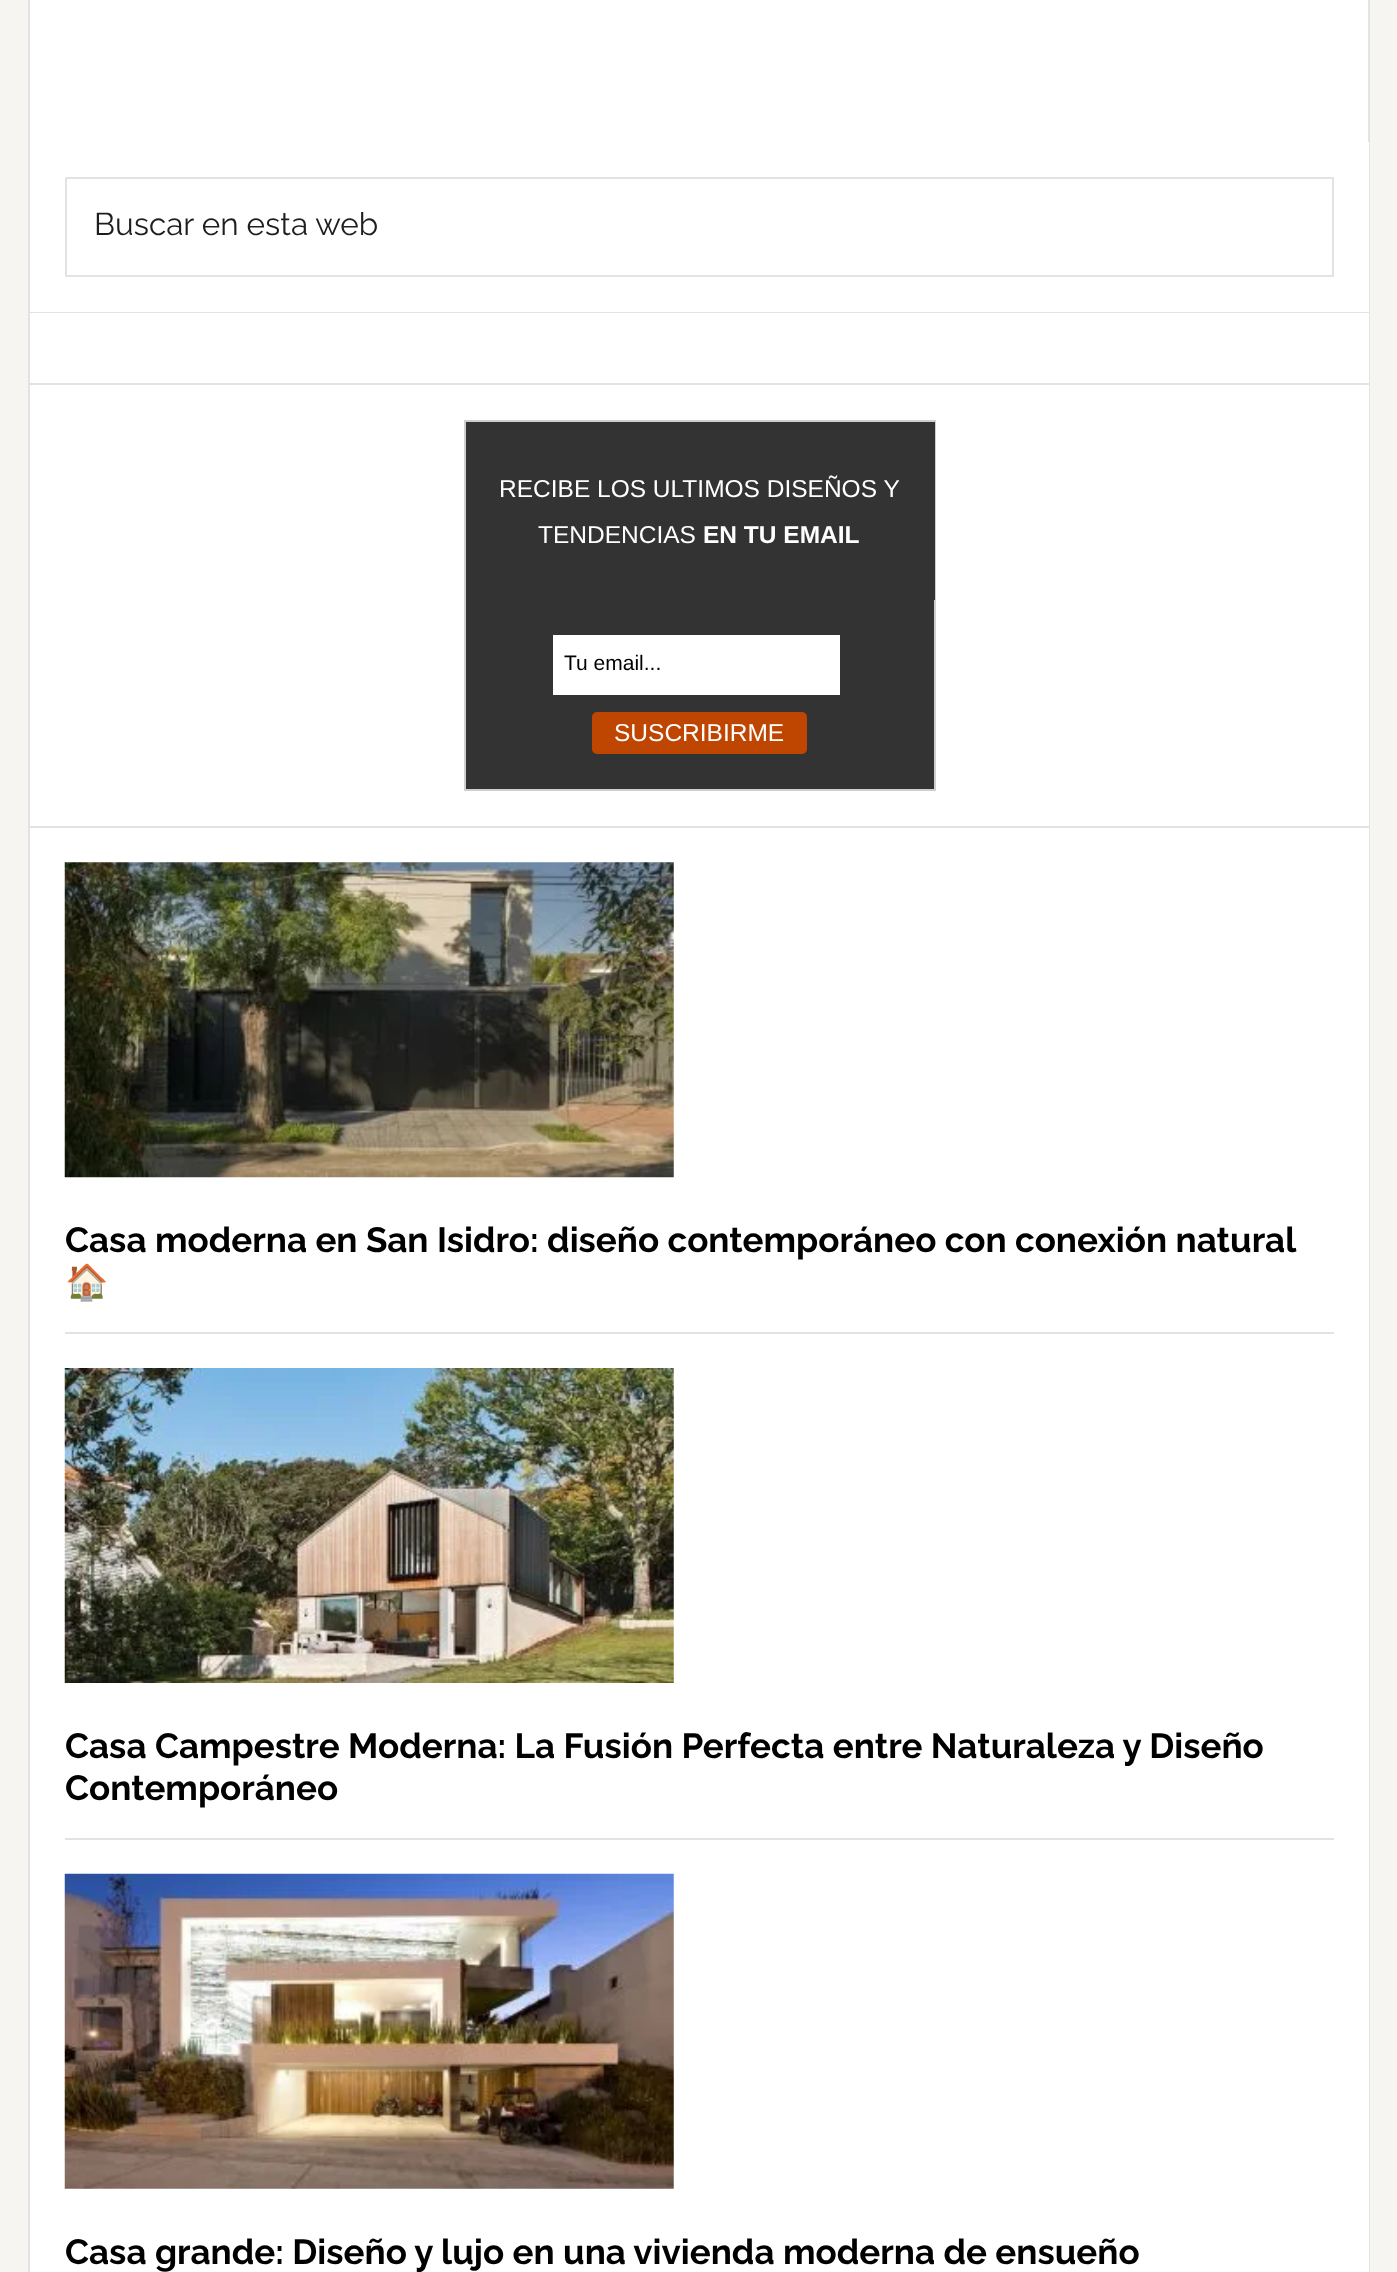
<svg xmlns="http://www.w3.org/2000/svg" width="1397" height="2272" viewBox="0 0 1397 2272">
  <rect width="100%" height="100%" fill="#f6f5f2"/>
  <path d="M30 0h1338v142H30z" fill="#fff"/>
  <path d="M29 -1h1340v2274H29z" fill="none" stroke="#e3e3e3" stroke-width="2"/>
  <path d="M30 142h1339v170H30z" fill="#fff"/>
  <path d="M30 312h1339v1H30z" fill="#e3e3e3"/>
  <path d="M66 178h1267v98H66z" fill="none" stroke="#e3e3e3" stroke-width="2"/>
  <path d="M30 313h1339v70H30z" fill="#fff"/>
  <path d="M30 383h1339v2H30z" fill="#e3e3e3"/>
  <path d="M30 385h1339v441H30z" fill="#fff"/>
  <path d="M30 826h1339v2H30z" fill="#e3e3e3"/>
  <path d="M466 600h468v189H466z" fill="#333"/>
  <path d="M465 421h470v369H465z" fill="none" stroke="#cfcfcf" stroke-width="2"/>
  <path d="M466 422h469v178H466z" fill="#333"/>
  <path d="M553 635h287v60H553z" fill="#fff"/>
  <rect x="593" y="713" width="213" height="40" rx="4" fill="#bf4600" stroke="#bf4600" stroke-width="2"/>
  <path d="M30 828h1339v1444H30z" fill="#fff"/>
  <path d="M65 1332h1269v2H65z" fill="#e3e3e3"/>
  <image x="64" y="862" width="610" height="316" href="img/1.png"/>
  <path d="M65 1838h1269v2H65z" fill="#e3e3e3"/>
  <image x="64" y="1368" width="610" height="315" href="img/2.png"/>
  <image x="64" y="1873" width="610" height="316" href="img/3.png"/>
  <text x="94" y="235" font-family="Raleway" font-size="31.5" fill="#1e1e1e">Buscar en esta web</text>
  <g font-family="Liberation Sans" font-size="24.5" fill="#fff">
    <text x="499" y="497">RECIBE LOS ULTIMOS DISEÑOS Y</text>
    <text x="538" y="543">TENDENCIAS</text>
  </g>
  <text x="703" y="543" font-family="Liberation Sans" font-size="24.5" font-weight="bold" fill="#fff">EN TU EMAIL</text>
  <text x="564" y="670" font-family="Liberation Sans" font-size="21" fill="#000">Tu email...</text>
  <text x="614" y="741" font-family="Liberation Sans" font-size="24.5" fill="#fff">SUSCRIBIRME</text>
  <text x="65" y="1252" font-family="Raleway" font-size="35" font-weight="bold" fill="#000">Casa moderna en San Isidro: diseño contemporáneo con conexión natural</text>
  <text x="65" y="1294" font-family="Noto Color Emoji" font-size="35" font-weight="bold" fill="#000">🏠</text>
  <g font-family="Raleway" font-size="35" font-weight="bold" fill="#000">
    <text x="65" y="1758">Casa Campestre Moderna: La Fusión Perfecta entre Naturaleza y Diseño</text>
    <text x="65" y="1800">Contemporáneo</text>
    <text x="65" y="2264">Casa grande: Diseño y lujo en una vivienda moderna de ensueño</text>
  </g>
</svg>
